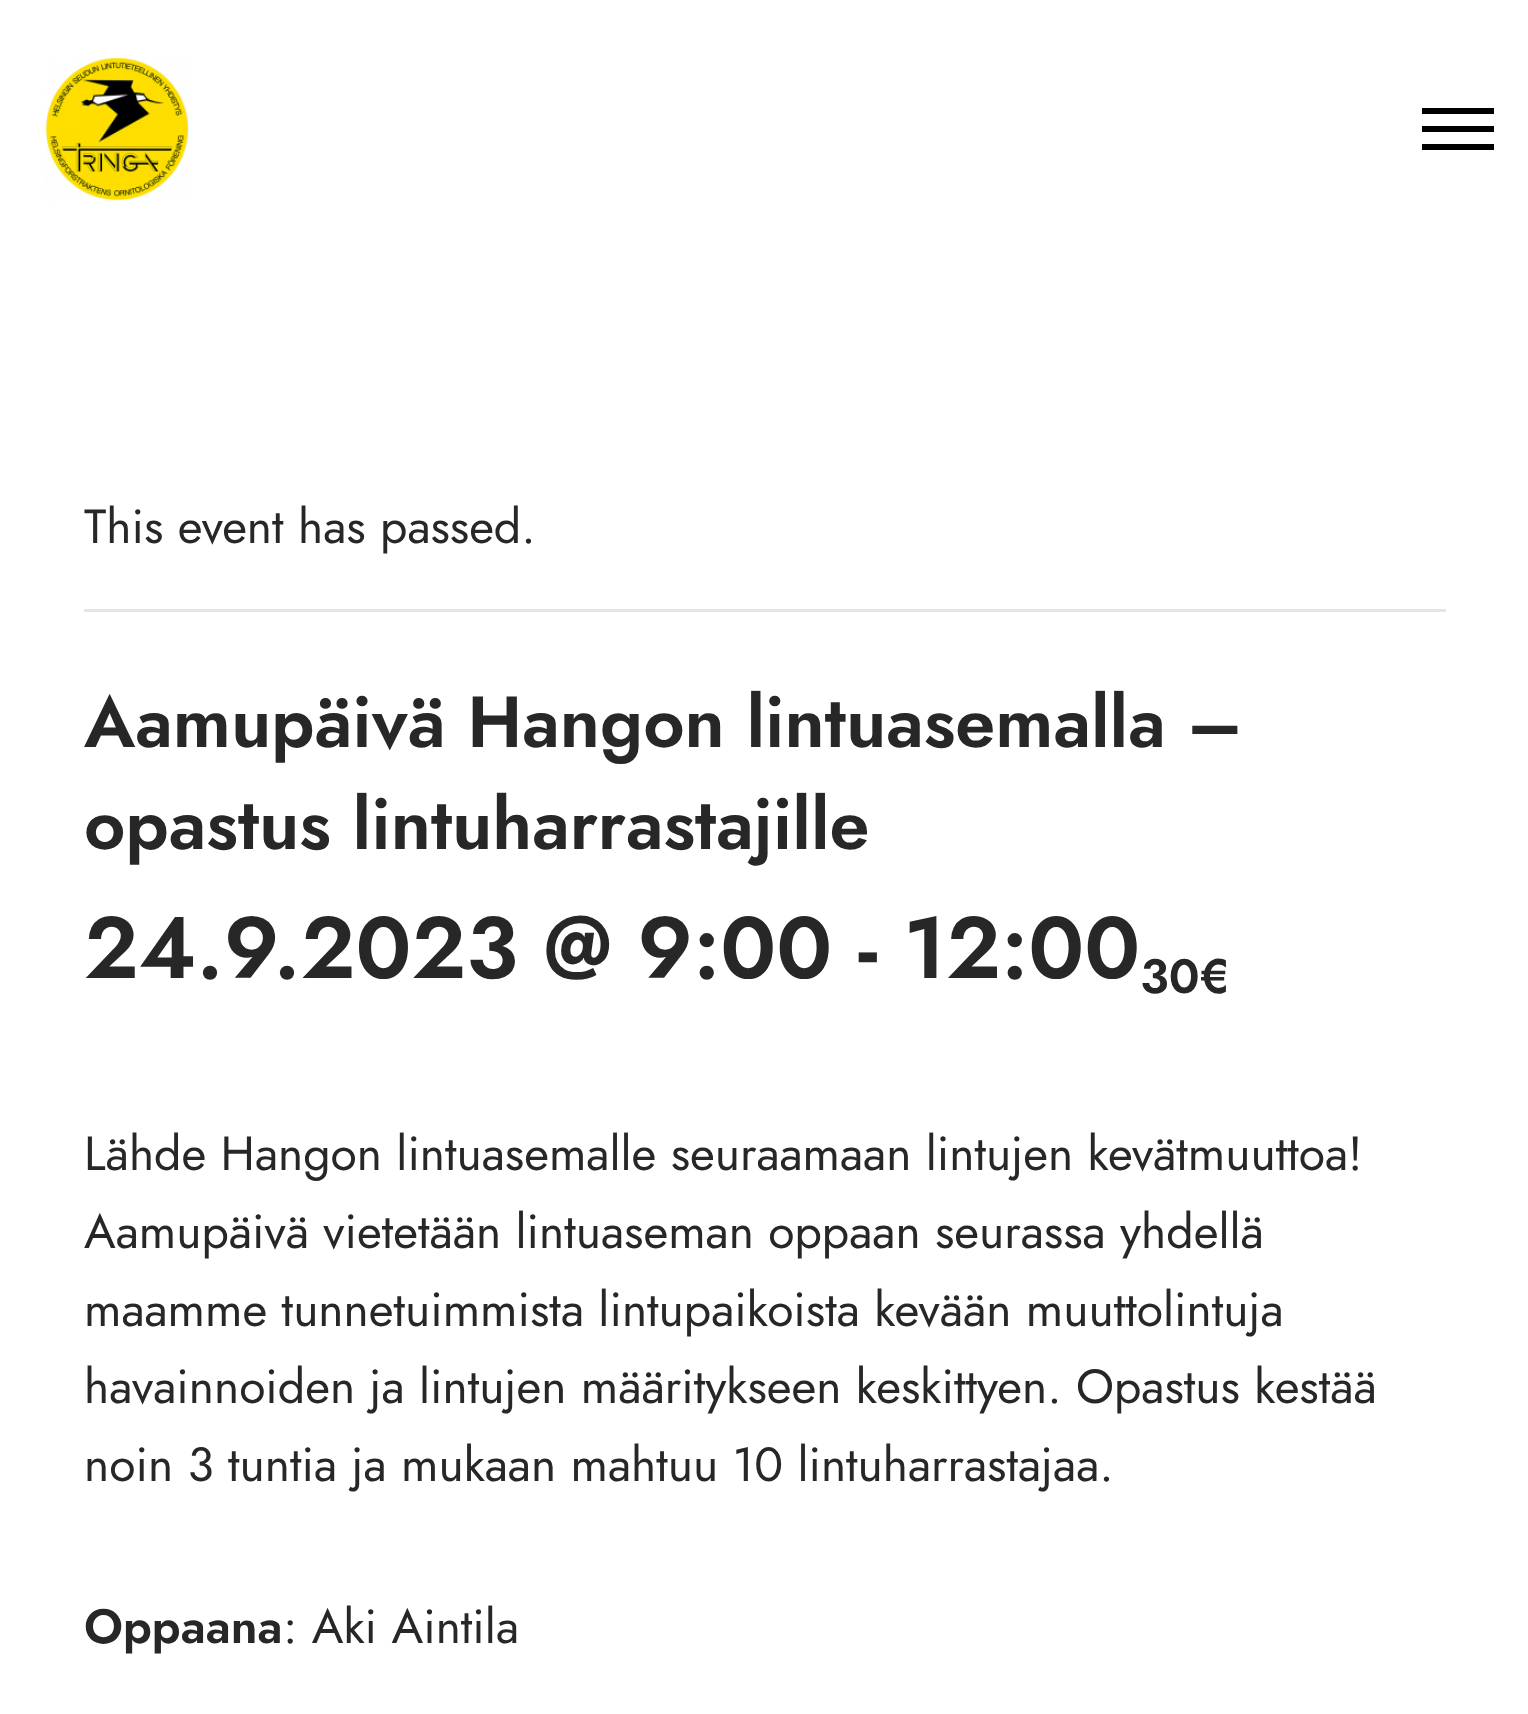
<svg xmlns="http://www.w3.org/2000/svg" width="1528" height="1714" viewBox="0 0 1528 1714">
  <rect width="100%" height="100%" fill="#fff"/>
  <image x="45" y="58" width="144" height="143" href="img/1.png"/>
  <path d="M1494 144V150H1422V144ZM1494 126V132H1422V126ZM1494 108V114H1422V108Z" fill="#000"/>
  <path d="M84 609h1362v3H84z" fill="#e4e4e4"/>
  <text x="84" y="543" font-family="Jost" font-size="48" fill="#272727">This event has passed.</text>
  <g font-family="Jost" font-size="72" font-weight="600" fill="#272727">
    <text x="84" y="747">Aamupäivä Hangon lintuasemalla –</text>
    <text x="84" y="849">opastus lintuharrastajille</text>
  </g>
  <text x="84" y="978" font-family="Jost" font-size="87" font-weight="600" fill="#272727">24.9.2023 @ 9:00 - 12:00</text>
  <text x="1140" y="993" font-family="Jost" font-size="48" font-weight="600" fill="#272727">30€</text>
  <g font-family="Jost" font-size="48" fill="#272727">
    <text x="84" y="1170">Lähde Hangon lintuasemalle seuraamaan lintujen kevätmuuttoa!</text>
    <text x="84" y="1248">Aamupäivä vietetään lintuaseman oppaan seurassa yhdellä</text>
    <text x="84" y="1326">maamme tunnetuimmista lintupaikoista kevään muuttolintuja</text>
    <text x="84" y="1403">havainnoiden ja lintujen määritykseen keskittyen. Opastus kestää</text>
    <text x="84" y="1481">noin 3 tuntia ja mukaan mahtuu 10 lintuharrastajaa.</text>
  </g>
  <text x="84" y="1643" font-family="Jost" font-size="48" font-weight="600" fill="#272727">Oppaana</text>
  <text x="283" y="1643" font-family="Jost" font-size="48" fill="#272727">: Aki Aintila</text>
</svg>
